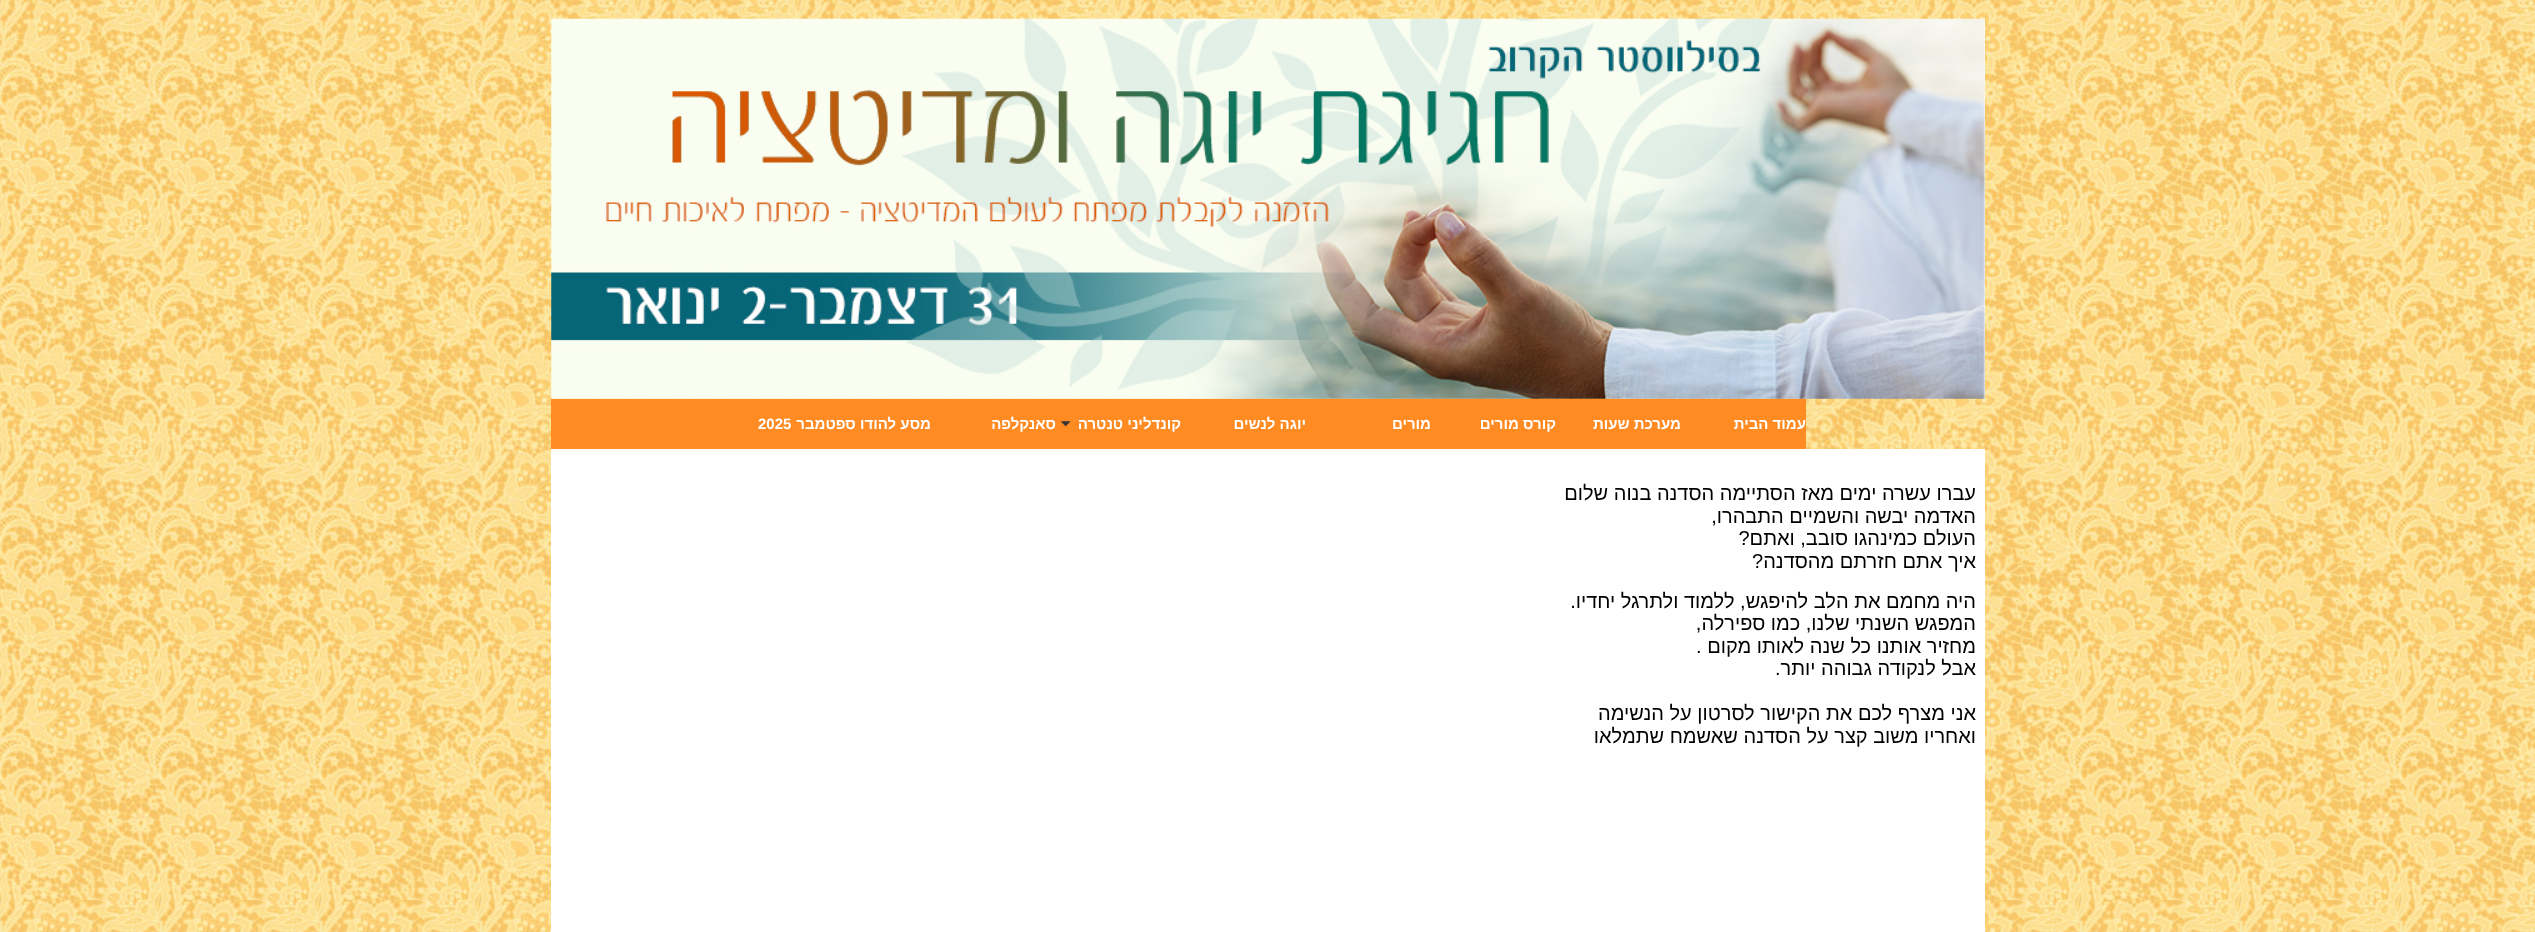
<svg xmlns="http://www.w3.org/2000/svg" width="2535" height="932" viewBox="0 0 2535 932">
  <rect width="100%" height="100%" fill="#fff"/>
  <image x="0" y="0" width="2535" height="932" href="img/1.png"/>
  <image x="551" y="18" width="1434" height="381" href="img/2.png"/>
  <path d="M551 399h1255v50H551z" fill="#ff8b22"/>
  <image x="1061" y="421" width="9" height="6" href="img/3.png"/>
  <path d="M551 449h1434v483H551z" fill="#fff"/>
  <g font-family="Liberation Sans" font-size="15" font-weight="bold" direction="rtl" fill="#fff">
    <text x="1806" y="429">עמוד הבית</text>
    <text x="1681" y="429">מערכת שעות</text>
    <text x="1556" y="429">קורס מורים</text>
    <text x="1431" y="429">מורים</text>
    <text x="1306" y="429">יוגה לנשים</text>
    <text x="1181" y="429">קונדליני טנטרה</text>
    <text x="1056" y="429">סאנקלפה</text>
    <text x="931" y="429">מסע להודו ספטמבר</text>
  </g>
  <text x="758" y="429" font-family="Liberation Sans" font-size="15" font-weight="bold" fill="#fff">2025</text>
  <g font-family="Liberation Sans" font-size="20" direction="rtl" fill="#000">
    <text x="1976" y="500">עברו עשרה ימים מאז הסתיימה הסדנה בנוה שלום</text>
    <text x="1976" y="523">האדמה יבשה והשמיים התבהרו,</text>
    <text x="1976" y="545">העולם כמינהגו סובב, ואתם?</text>
    <text x="1976" y="568">איך אתם חזרתם מהסדנה?</text>
    <text x="1976" y="608">היה מחמם את הלב להיפגש, ללמוד ולתרגל יחדיו.</text>
    <text x="1976" y="630">המפגש השנתי שלנו, כמו ספירלה,</text>
    <text x="1976" y="653">מחזיר אותנו כל שנה לאותו מקום .</text>
    <text x="1976" y="675">אבל לנקודה גבוהה יותר.</text>
    <text x="1976" y="720">אני מצרף לכם את הקישור לסרטון על הנשימה</text>
    <text x="1976" y="743">ואחריו משוב קצר על הסדנה שאשמח שתמלאו</text>
  </g>
</svg>
